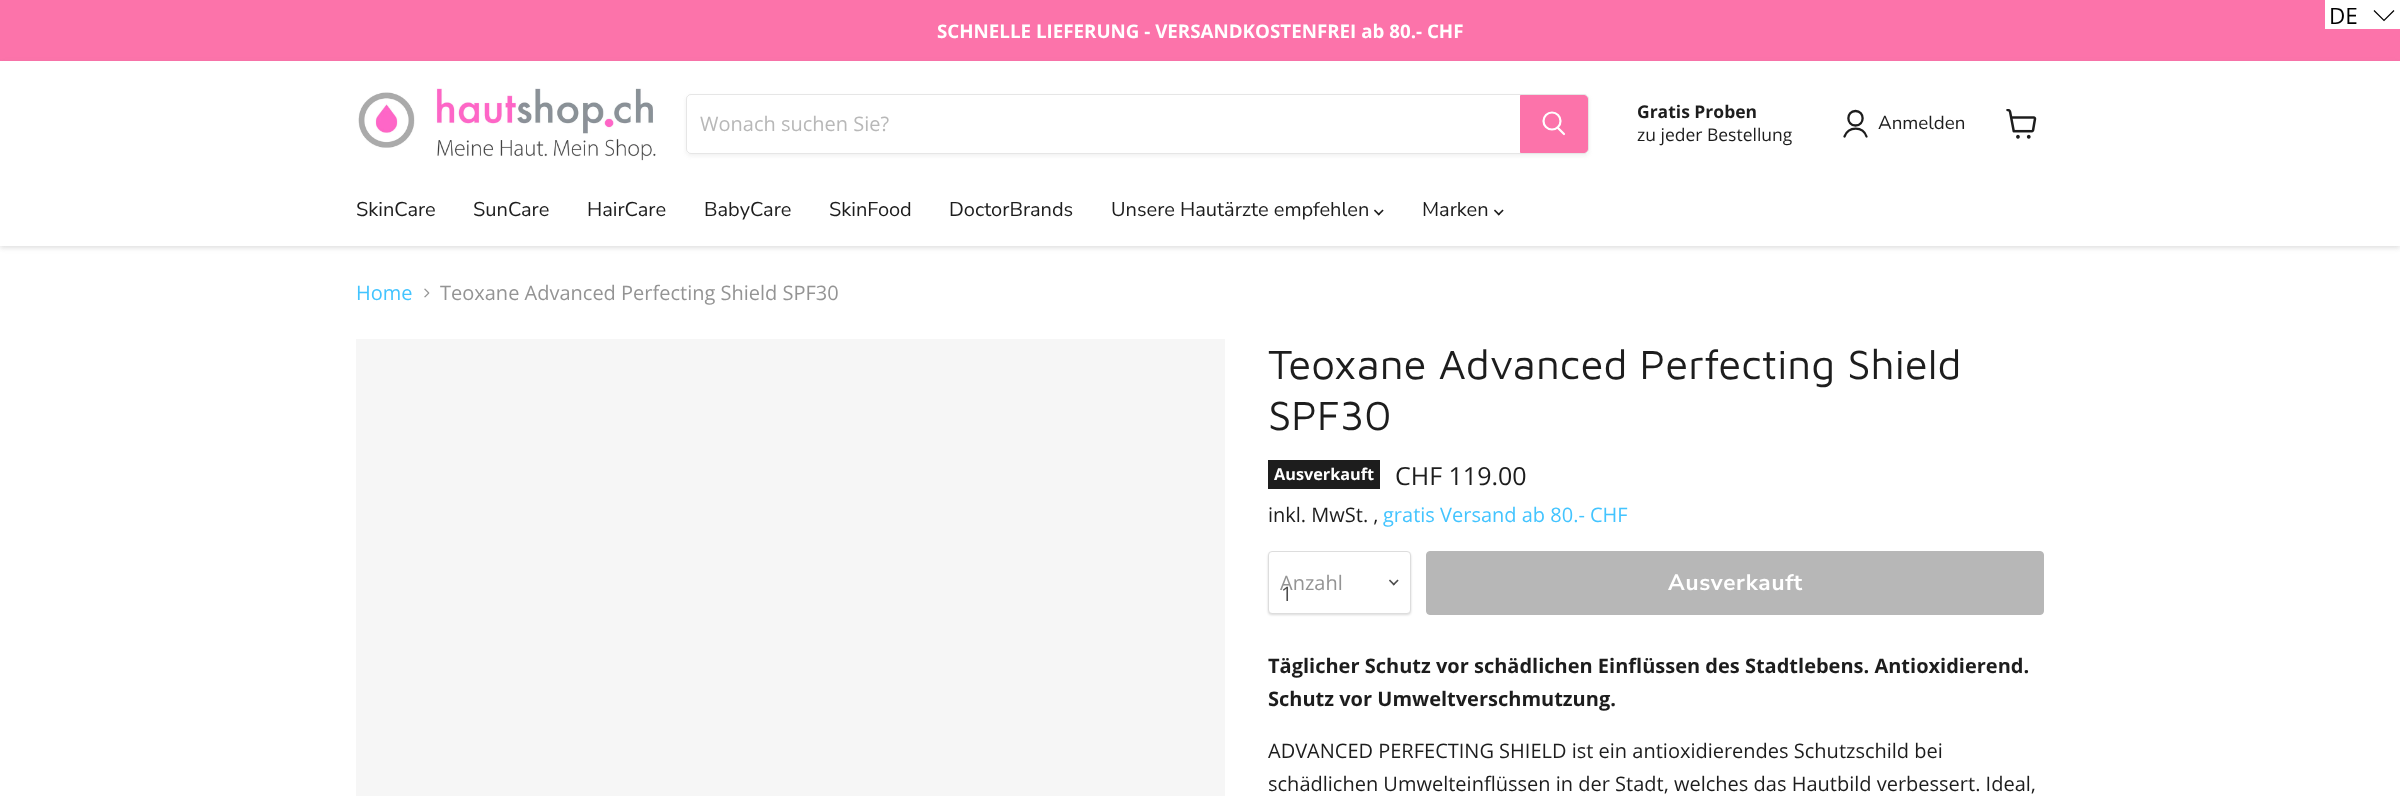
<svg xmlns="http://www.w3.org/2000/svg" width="2400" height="796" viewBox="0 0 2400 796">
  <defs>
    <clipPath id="clip1"><path d="M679 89H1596V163H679ZM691 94H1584C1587 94 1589 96 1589 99V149C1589 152 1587 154 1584 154H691C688 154 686 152 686 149V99C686 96 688 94 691 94Z" clip-rule="evenodd"/></clipPath>
  </defs>
  <rect width="100%" height="100%" fill="#fff"/>
  <path d="M0 0h2400v61H0z" fill="#fc73aa"/>
  <path d="M2325 0h75v29H2325z" fill="#fff"/>
  <path d="M2374 10.5L2384 20.5L2394 10.5" fill="none" stroke="#000" stroke-width="1.2"/>
  <path d="M0 63h2400v185H0z" fill="#80808040" filter="blur(2.5px)"/>
  <path d="M0 61h2400v185H0z" fill="#fff"/>
  <image x="358" y="88" width="298" height="73" href="img/1.png"/>
  <g clip-path="url(#clip1)">
    <rect x="686" y="96" width="903" height="60" rx="5" fill="#8080801c" filter="blur(2px)"/>
  </g>
  <rect x="686.5" y="94.5" width="902" height="59" rx="4.5" fill="none" stroke="#80808033"/>
  <path d="M1520.5 95.5H1584C1586 95.5 1587.5 97 1587.5 99V149C1587.5 151 1586 152.5 1584 152.5H1520.5Z" fill="#fc73aa" stroke="#fc73aa"/>
  <path d="M1564 134L1558 128" fill="none" stroke="#fff" stroke-width="2.2" stroke-linecap="round"/>
  <circle cx="1552" cy="121" r="8.5" fill="none" stroke="#fff" stroke-width="2.2"/>
  <path d="M1855.5 125.5C1865 125.5 1865 111 1855.5 111C1846 111 1846 125.5 1855.5 125.5ZM1866.5 136.5C1863 126 1848.5 126 1844.5 136.5" fill="none" stroke="#1d1d1d" stroke-width="2.3" stroke-linecap="round" stroke-linejoin="round"/>
  <image x="2006" y="109" width="31" height="30" href="img/2.png"/>
  <image x="1374" y="209" width="10" height="7" href="img/3.png"/>
  <image x="1494" y="209" width="10" height="7" href="img/3.png"/>
  <image x="424" y="288" width="6" height="10" href="img/4.png"/>
  <path d="M356 339h869v457H356z" fill="#f6f6f6"/>
  <path d="M1268 460h112v29H1268z" fill="#1d1d1d"/>
  <rect x="1268" y="553" width="143" height="62" rx="4" fill="#00000026" filter="blur(1px)"/>
  <rect x="1268.5" y="551.5" width="142" height="62" rx="3.5" fill="#fff" stroke="#ddd"/>
  <image x="1389" y="579" width="10" height="7" href="img/5.png"/>
  <rect x="1426.5" y="551.5" width="617" height="63" rx="3.5" fill="#b7b7b7" stroke="#b7b7b7"/>
  <text x="2329" y="24" font-family="Open Sans" font-size="22.5" fill="#000">DE</text>
  <text x="937" y="38" font-family="Open Sans" font-size="18.75" font-weight="bold" fill="#fff">SCHNELLE LIEFERUNG - VERSANDKOSTENFREI ab 80.- CHF</text>
  <text x="700" y="131" font-family="Open Sans" font-size="20" fill="#b8b8b8">Wonach suchen Sie?</text>
  <text x="1637" y="118" font-family="Open Sans" font-size="17.5" font-weight="bold" fill="#1d1d1d">Gratis Proben</text>
  <text x="1637" y="141" font-family="Open Sans" font-size="17.5" fill="#1d1d1d">zu jeder Bestellung</text>
  <text x="1878" y="129" font-family="Nunito Sans" font-size="18.75" fill="#1d1d1d">Anmelden</text>
  <g font-family="Nunito Sans" font-size="20" fill="#1d1d1d">
    <text x="356" y="216">SkinCare</text>
    <text x="473" y="216">SunCare</text>
    <text x="587" y="216">HairCare</text>
    <text x="704" y="216">BabyCare</text>
    <text x="829" y="216">SkinFood</text>
    <text x="949" y="216">DoctorBrands</text>
    <text x="1111" y="216">Unsere Hautärzte empfehlen</text>
    <text x="1422" y="216">Marken</text>
  </g>
  <text x="356" y="300" font-family="Open Sans" font-size="20" fill="#43c4ff">Home</text>
  <text x="440" y="300" font-family="Open Sans" font-size="20" fill="#949494">Teoxane Advanced Perfecting Shield SPF30</text>
  <g font-family="Maven Pro" font-size="42" fill="#1d1d1d">
    <text x="1268" y="379">Teoxane Advanced Perfecting Shield</text>
    <text x="1268" y="430">SPF30</text>
  </g>
  <text x="1274" y="480" font-family="Open Sans" font-size="16.25" font-weight="bold" fill="#fff">Ausverkauft</text>
  <text x="1395" y="485" font-family="Open Sans" font-size="25" fill="#1d1d1d">CHF 119.00</text>
  <text x="1268" y="522" font-family="Open Sans" font-size="20" fill="#1d1d1d">inkl. MwSt. ,</text>
  <text x="1383" y="522" font-family="Open Sans" font-size="20" fill="#43c4ff">gratis Versand ab 80.- CHF</text>
  <text x="1280" y="590" font-family="Open Sans" font-size="20" fill="#949494">Anzahl</text>
  <text x="1281" y="601" font-family="Open Sans" font-size="20" fill="#4d4d4d">1</text>
  <text x="1668" y="590" font-family="Nunito Sans" font-size="22.5" font-weight="bold" letter-spacing="0.75" fill="#fff">Ausverkauft</text>
  <g font-family="Open Sans" font-size="20" font-weight="bold" fill="#1d1d1d">
    <text x="1268" y="673">Täglicher Schutz vor schädlichen Einflüssen des Stadtlebens. Antioxidierend.</text>
    <text x="1268" y="706">Schutz vor Umweltverschmutzung.</text>
  </g>
  <g font-family="Open Sans" font-size="20" fill="#1d1d1d">
    <text x="1268" y="758">ADVANCED PERFECTING SHIELD ist ein antioxidierendes Schutzschild bei</text>
    <text x="1268" y="791">schädlichen Umwelteinflüssen in der Stadt, welches das Hautbild verbessert. Ideal,</text>
  </g>
</svg>
